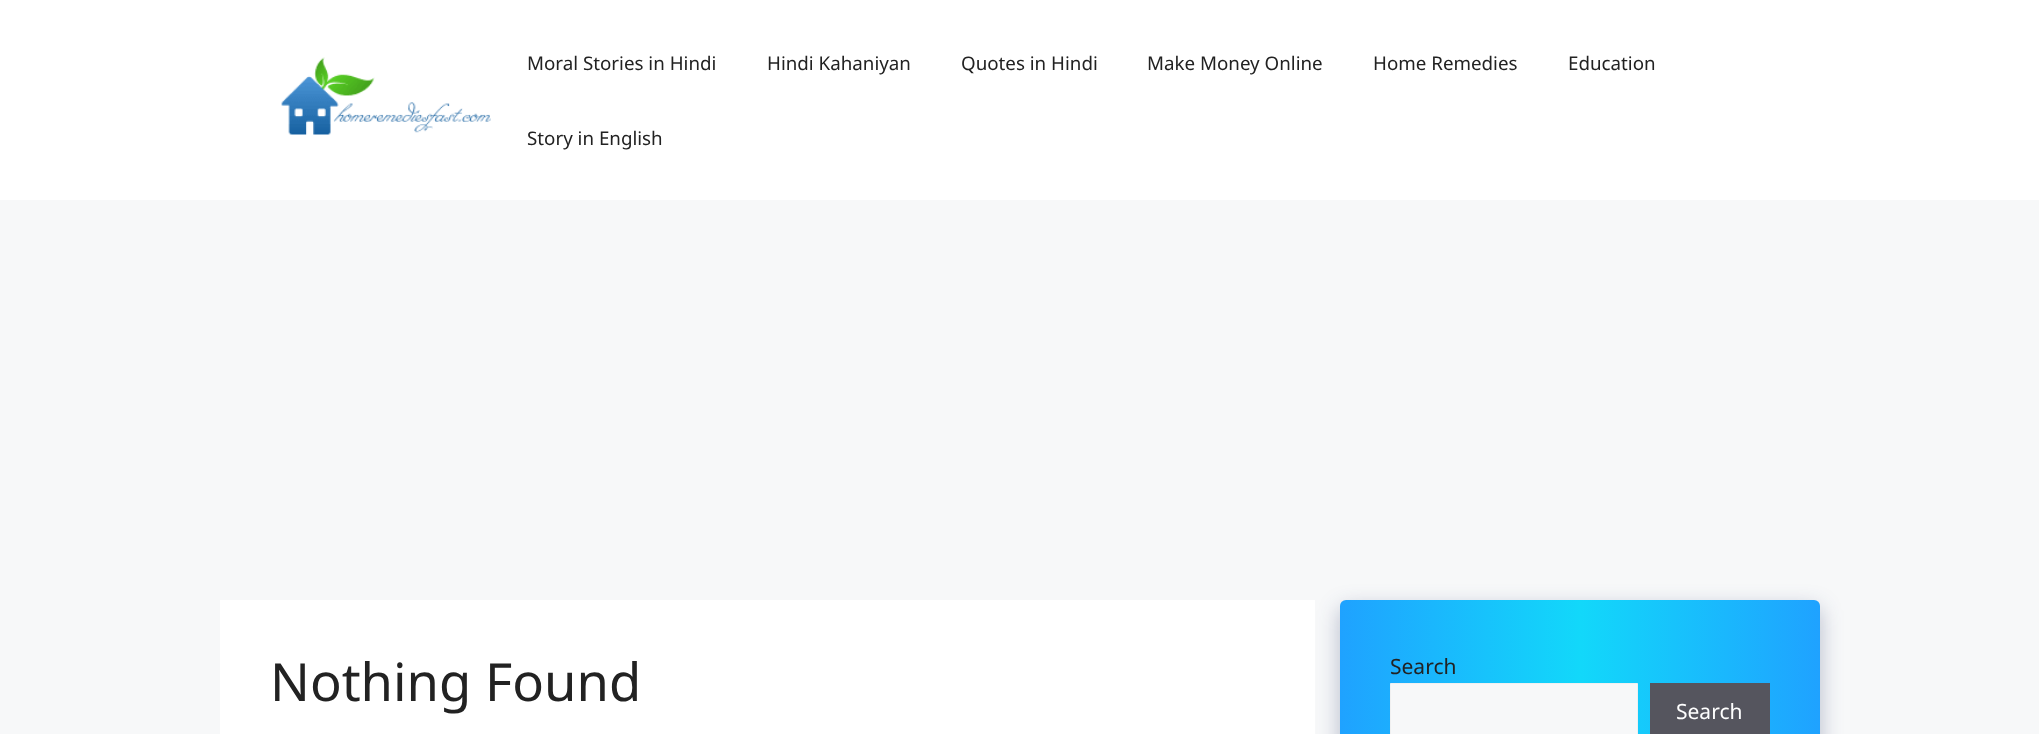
<svg xmlns="http://www.w3.org/2000/svg" width="2039" height="734" viewBox="0 0 2039 734">
  <defs>
    <linearGradient id="g1" gradientUnits="userSpaceOnUse" x1="1340" y1="696" x2="1820" y2="696"><stop offset="0" stop-color="#1fa2ff"/><stop offset="0.5" stop-color="#12d8fa"/><stop offset="1" stop-color="#1fa2ff"/></linearGradient>
  </defs>
  <rect width="100%" height="100%" fill="#f7f8f9"/>
  <path d="M0 0h2039v200H0z" fill="#fff"/>
  <image x="281" y="57" width="210" height="78" href="img/1.png"/>
  <path d="M220 600h1095v134H220z" fill="#fff"/>
  <rect x="1340" y="608" width="480" height="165" rx="6" fill="#172b634d" filter="blur(11px)"/>
  <rect x="1340" y="600" width="480" height="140" rx="6" fill="url(#g1)"/>
  <path d="M1390.5 683.5h247v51H1390.5z" fill="#f7f8f9" stroke="#f0f0f0"/>
  <path d="M1650 683h120v51H1650z" fill="#55555e"/>
  <g font-family="Noto Sans" font-size="18.75" fill="#222">
    <text x="527" y="70">Moral Stories in Hindi</text>
    <text x="767" y="70">Hindi Kahaniyan</text>
    <text x="961" y="70">Quotes in Hindi</text>
    <text x="1147" y="70">Make Money Online</text>
    <text x="1373" y="70">Home Remedies</text>
    <text x="1568" y="70">Education</text>
    <text x="527" y="145">Story in English</text>
  </g>
  <text x="270" y="701" font-family="Noto Sans" font-size="52.5" fill="#222">Nothing Found</text>
  <text x="1390" y="674" font-family="Noto Sans" font-size="21" fill="#222">Search</text>
  <text x="1676" y="719" font-family="Noto Sans" font-size="21" fill="#fff">Search</text>
</svg>
